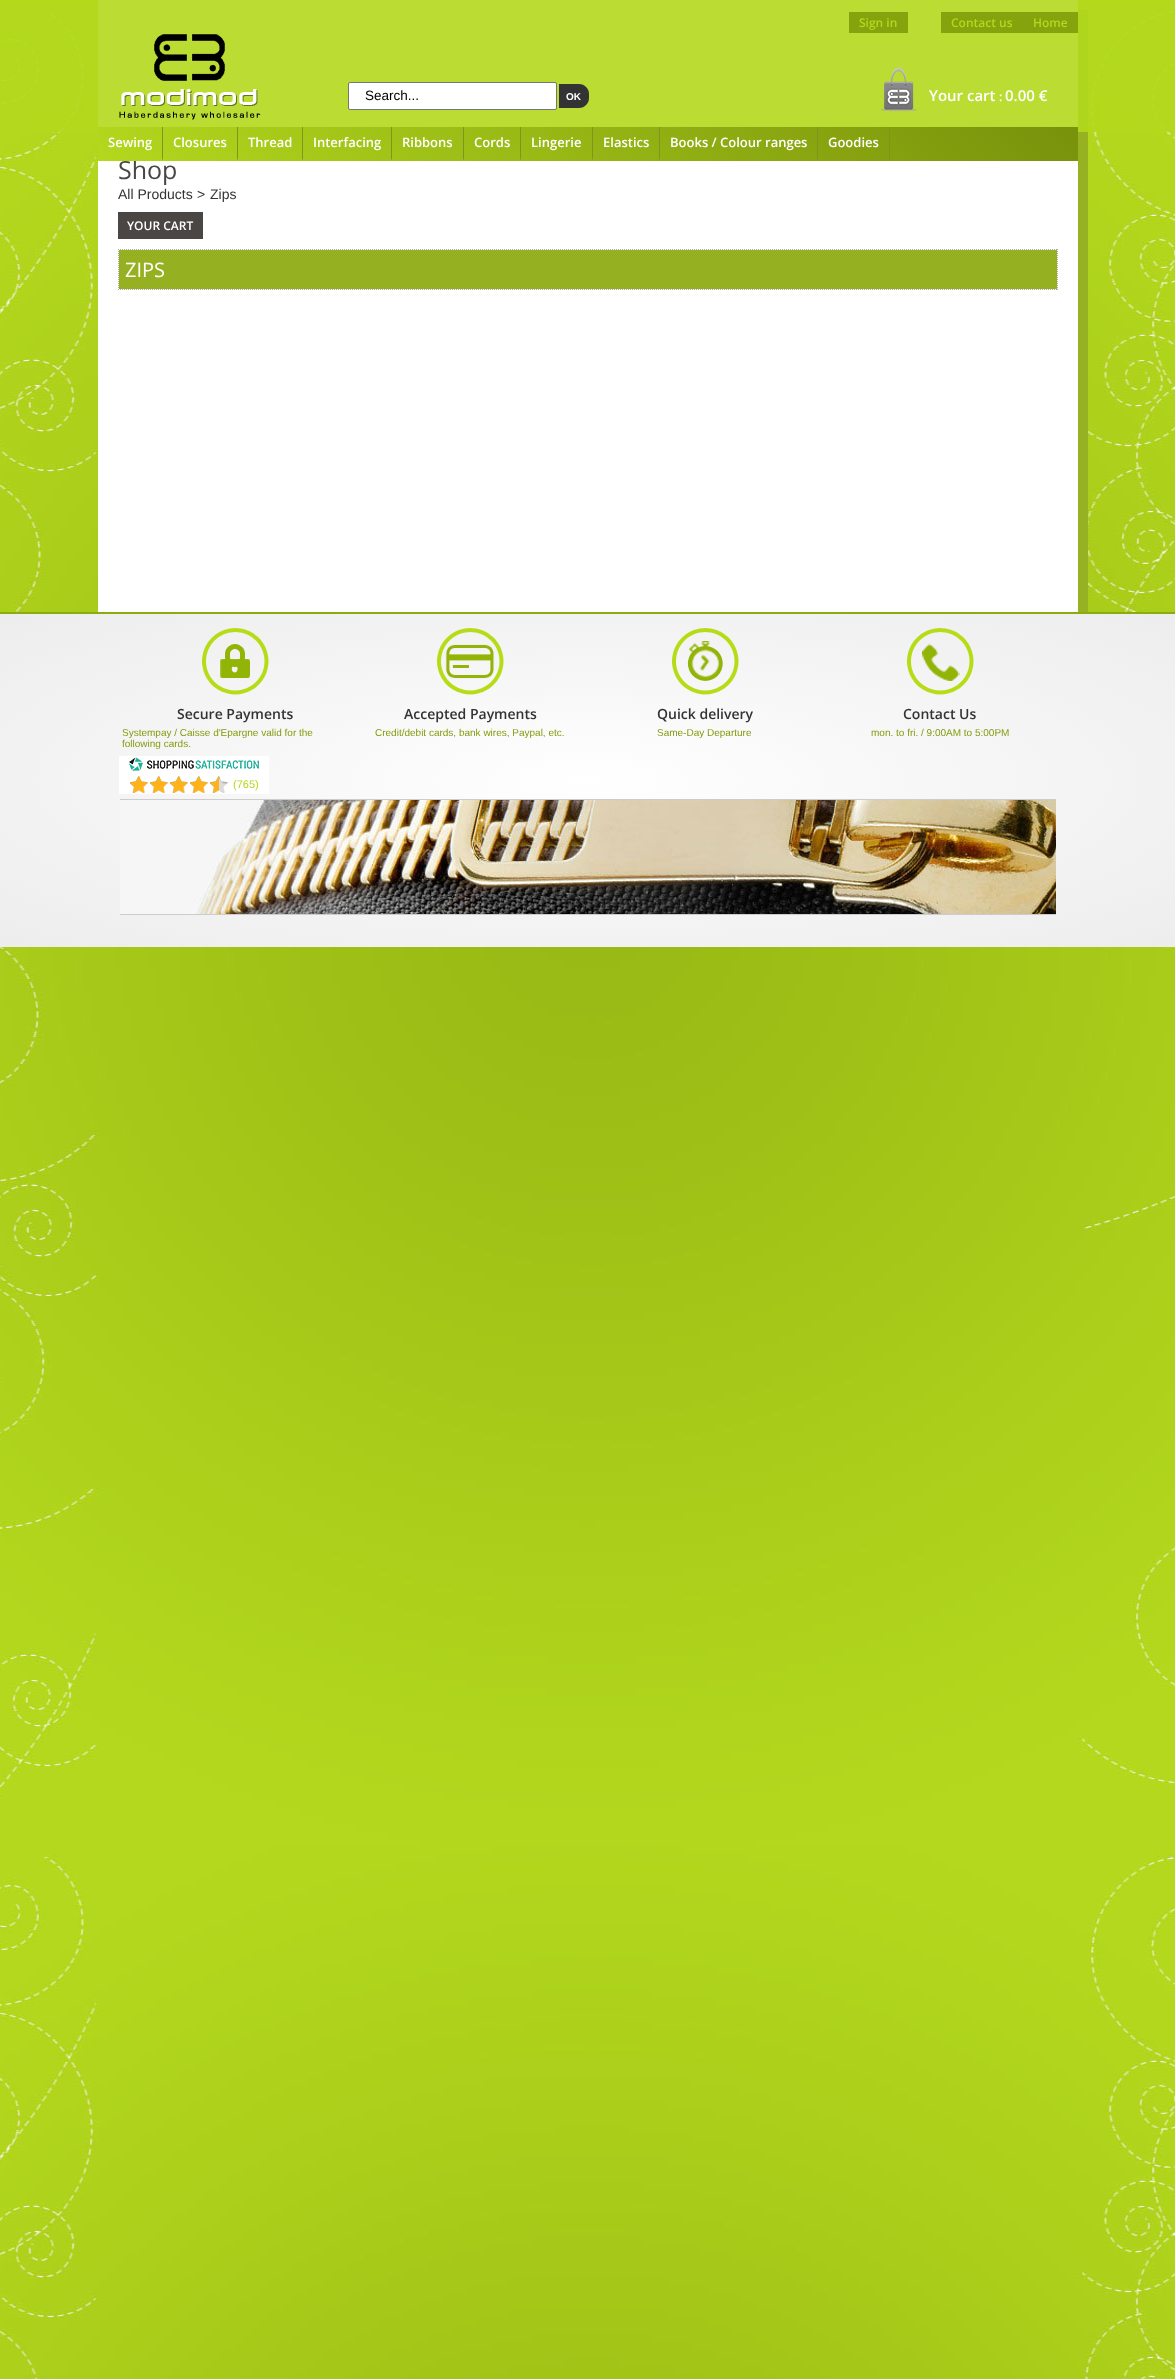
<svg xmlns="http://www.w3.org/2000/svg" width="1175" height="2379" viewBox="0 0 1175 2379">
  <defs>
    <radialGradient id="g1" gradientUnits="userSpaceOnUse" cx="0" cy="0" r="1" gradientTransform="matrix(831 0 0 235 588 781)"><stop offset="0" stop-color="#fff"/><stop offset="0.47" stop-color="#f6f6f6"/><stop offset="1" stop-color="#ededed"/></radialGradient>
    <linearGradient id="g2" gradientUnits="userSpaceOnUse" x1="335" y1="398" x2="842" y2="-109"><stop offset="0" stop-color="#b3d81d"/><stop offset="1" stop-color="#78920b"/></linearGradient>
  </defs>
  <rect width="100%" height="100%" fill="#b3d81d"/>
  <image x="0" y="8" width="1175" height="2371" href="img/1.png"/>
  <path d="M108 612V622H1088V10H1078V612Z" fill="#96b222"/>
  <path d="M98 0h980v612H98z" fill="#fff"/>
  <path d="M0 0h1175v132H0z" fill="#b3d81de6"/>
  <image x="119" y="34" width="142" height="86" href="img/2.png"/>
  <path d="M849 12h59v21H849z" fill="#85a30d"/>
  <path d="M941 12h137v21H941z" fill="#85a30d"/>
  <rect x="348.5" y="82.5" width="208" height="27" rx="1.5" fill="#fff" stroke="#767676"/>
  <path d="M559 84H579C584.5 84 589 88.5 589 94V98C589 103.5 584.5 108 579 108H559Z" fill="#333"/>
  <image x="881" y="67" width="36" height="45" href="img/3.png"/>
  <path d="M118 212h85v27H118z" fill="#4a4643"/>
  <path d="M118 249.5H1058" fill="none" stroke="#aaa" stroke-dasharray="1 1"/>
  <path d="M1057.5 249V290" fill="none" stroke="#aaa" stroke-dasharray="1 1"/>
  <path d="M118 289.5H1058" fill="none" stroke="#aaa" stroke-dasharray="1 1"/>
  <path d="M118.5 249V290" fill="none" stroke="#aaa" stroke-dasharray="1 1"/>
  <path d="M119 250h938v39H119z" fill="#95b121"/>
  <path d="M0 614h1175v333H0z" fill="url(#g1)"/>
  <path d="M0 612h1175v2H0z" fill="#8cab0d"/>
  <image x="202" y="628" width="67" height="67" href="img/4.png"/>
  <image x="437" y="628" width="67" height="67" href="img/5.png"/>
  <image x="672" y="628" width="67" height="67" href="img/6.png"/>
  <image x="907" y="628" width="67" height="67" href="img/7.png"/>
  <path d="M119 756h150v38H119z" fill="#fff"/>
  <image x="129" y="757" width="130" height="14" href="img/8.png"/>
  <image x="130" y="776" width="98" height="17" href="img/9.png"/>
  <image x="130" y="776" width="89" height="17" href="img/10.png"/>
  <image x="120" y="800" width="936" height="114" href="img/11.png"/>
  <path d="M120 799h936v1H120z" fill="#ccc"/>
  <path d="M120 914h936v1H120z" fill="#ccc"/>
  <g font-family="Open Sans" font-size="12" font-weight="600" fill="#b3d81d">
    <text x="859" y="27">Sign in</text>
    <text x="951" y="27">Contact us</text>
    <text x="1033" y="27">Home</text>
  </g>
  <text x="365" y="100" font-family="Liberation Sans" font-size="13.5" fill="#000">Search...</text>
  <text x="566" y="100" font-family="Liberation Sans" font-size="10" font-weight="bold" fill="#fff">OK</text>
  <text x="929" y="101" font-family="Open Sans" font-size="15" font-weight="600" fill="#fff">Your cart</text>
  <text x="999" y="101" font-family="Open Sans" font-size="12" font-weight="600" fill="#fff">:</text>
  <text x="1005" y="101" font-family="Open Sans" font-size="15" font-weight="600" fill="#fff">0.00 €</text>
  <text x="118" y="179" font-family="Open Sans" font-size="25" fill="#4a4643">Shop</text>
  <path d="M98 127h980v34H98z" fill="url(#g2)"/>
  <text x="828" y="147" font-family="Open Sans" font-size="13" font-weight="600" fill="#fff">Goodies</text>
  <path d="M890 127V161L889 158V127Z" fill="#7e961f"/>
  <text x="670" y="147" font-family="Open Sans" font-size="13" font-weight="600" fill="#fff">Books / Colour ranges</text>
  <path d="M818 127V161L817 158V127Z" fill="#7e961f"/>
  <text x="603" y="147" font-family="Open Sans" font-size="13" font-weight="600" fill="#fff">Elastics</text>
  <path d="M660 127V161L659 158V127Z" fill="#7e961f"/>
  <text x="531" y="147" font-family="Open Sans" font-size="13" font-weight="600" fill="#fff">Lingerie</text>
  <path d="M593 127V161L592 158V127Z" fill="#7e961f"/>
  <text x="474" y="147" font-family="Open Sans" font-size="13" font-weight="600" fill="#fff">Cords</text>
  <path d="M521 127V161L520 158V127Z" fill="#7e961f"/>
  <text x="402" y="147" font-family="Open Sans" font-size="13" font-weight="600" fill="#fff">Ribbons</text>
  <path d="M464 127V161L463 158V127Z" fill="#7e961f"/>
  <text x="313" y="147" font-family="Open Sans" font-size="13" font-weight="600" fill="#fff">Interfacing</text>
  <path d="M392 127V161L391 158V127Z" fill="#7e961f"/>
  <text x="248" y="147" font-family="Open Sans" font-size="13" font-weight="600" fill="#fff">Thread</text>
  <path d="M303 127V161L302 158V127Z" fill="#7e961f"/>
  <text x="173" y="147" font-family="Open Sans" font-size="13" font-weight="600" fill="#fff">Closures</text>
  <path d="M238 127V161L237 158V127Z" fill="#7e961f"/>
  <text x="108" y="147" font-family="Open Sans" font-size="13" font-weight="600" fill="#fff">Sewing</text>
  <path d="M163 127V161L162 158V127Z" fill="#7e961f"/>
  <g font-family="Liberation Sans" font-size="14" fill="#333">
    <text x="118" y="199">All Products</text>
    <text x="197" y="199">&gt;</text>
    <text x="210" y="199">Zips</text>
  </g>
  <text x="127" y="230" font-family="Open Sans" font-size="12" font-weight="600" fill="#fff">YOUR CART</text>
  <text x="125" y="277" font-family="Open Sans" font-size="20" fill="#fff">ZIPS</text>
  <text x="177" y="719" font-family="Open Sans" font-size="14" font-weight="600" fill="#333">Secure Payments</text>
  <g font-family="Liberation Sans" font-size="10" fill="#819d0e">
    <text x="122" y="736">Systempay / Caisse d'Epargne valid for the</text>
    <text x="122" y="747">following cards.</text>
  </g>
  <text x="404" y="719" font-family="Open Sans" font-size="14" font-weight="600" fill="#333">Accepted Payments</text>
  <text x="375" y="736" font-family="Liberation Sans" font-size="10" fill="#819d0e">Credit/debit cards, bank wires, Paypal, etc.</text>
  <text x="657" y="719" font-family="Open Sans" font-size="14" font-weight="600" fill="#333">Quick delivery</text>
  <text x="657" y="736" font-family="Liberation Sans" font-size="10" fill="#819d0e">Same-Day Departure</text>
  <text x="903" y="719" font-family="Open Sans" font-size="14" font-weight="600" fill="#333">Contact Us</text>
  <text x="871" y="736" font-family="Liberation Sans" font-size="10" fill="#819d0e">mon. to fri. / 9:00AM to 5:00PM</text>
  <text x="233" y="788" font-family="Liberation Sans" font-size="11" fill="#b3d81d">(765)</text>
</svg>
